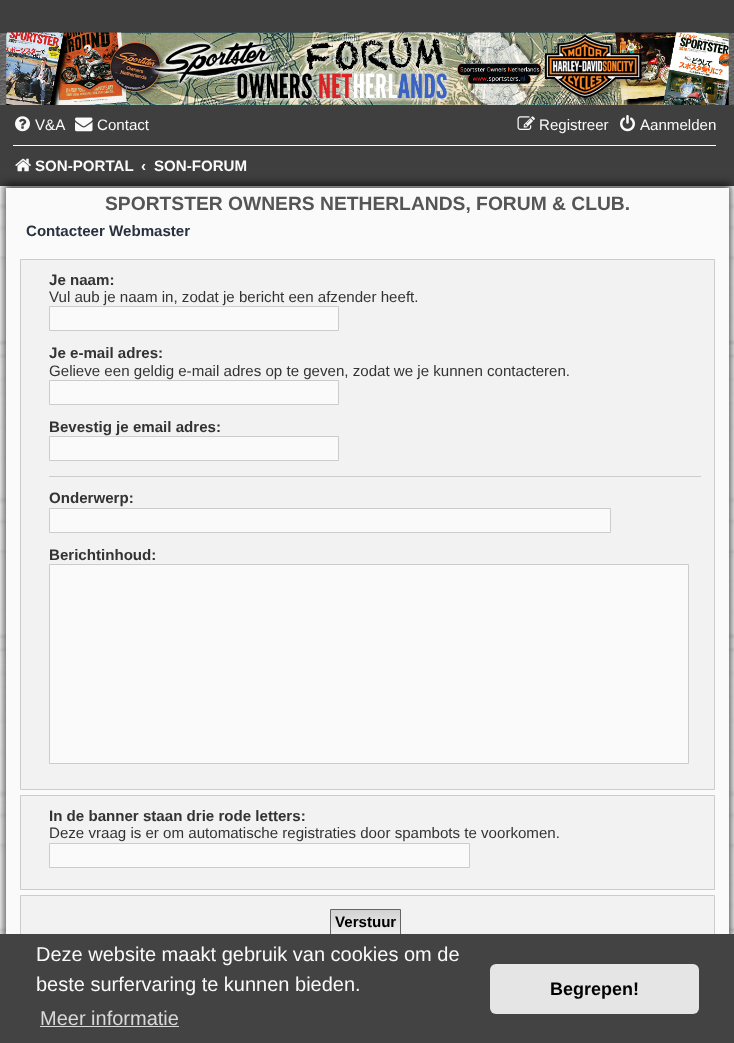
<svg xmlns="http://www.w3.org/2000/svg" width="734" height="1043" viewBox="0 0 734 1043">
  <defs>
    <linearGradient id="g1" gradientUnits="userSpaceOnUse" x1="366" y1="910" x2="366" y2="935"><stop offset="0" stop-color="#d2d2d2"/><stop offset="1" stop-color="#efefef"/></linearGradient>
  </defs>
  <rect width="100%" height="100%" fill="#fff"/>
  <image x="0" y="186" width="734" height="748" href="img/1.png"/>
  <image x="0" y="33" width="734" height="72" href="img/2.png"/>
  <path d="M0 0h734v33H0z" fill="#3f3f3f"/>
  <image x="6" y="32" width="723" height="73" href="img/3.png"/>
  <path d="M0 105h734v81H0z" fill="#3f3f3f"/>
  <image x="15" y="116" width="15" height="16" href="img/4.png"/>
  <image x="75" y="117" width="18" height="15" href="img/5.png"/>
  <image x="517" y="116" width="18" height="14" href="img/6.png"/>
  <image x="620" y="115" width="15" height="17" href="img/7.png"/>
  <path d="M13 145h703v1H13z" fill="#fff"/>
  <path d="M4 184h727v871H4z" fill="#020202b3" filter="blur(4px)"/>
  <image x="15" y="158" width="16" height="14" href="img/8.png"/>
  <path d="M6 188h723v746H6z" fill="#fafafa"/>
  <path d="M20.5 259.5h694v530H20.5z" fill="#f2f2f2" stroke="#ccc"/>
  <path d="M49.5 306.5h289v24H49.5z" fill="#fafafa" stroke="#ccc"/>
  <path d="M49.5 380.5h289v24H49.5z" fill="#fafafa" stroke="#ccc"/>
  <path d="M49.5 436.5h289v24H49.5z" fill="#fafafa" stroke="#ccc"/>
  <path d="M49 476h652v1H49z" fill="#ccc"/>
  <path d="M49.5 508.5h561v24H49.5z" fill="#fafafa" stroke="#ccc"/>
  <path d="M49.5 564.5h639v199H49.5z" fill="#fafafa" stroke="#ccc"/>
  <path d="M20.5 795.5h694v94H20.5z" fill="#f2f2f2" stroke="#ccc"/>
  <path d="M49.5 843.5h420v24H49.5z" fill="#fafafa" stroke="#ccc"/>
  <path d="M21 896h693v38H21z" fill="#f2f2f2"/>
  <path d="M20.5 895.5h694v54H20.5z" fill="none" stroke="#ccc"/>
  <path d="M331 910h69v24H331z" fill="url(#g1)"/>
  <path d="M330.5 909.5h70v26H330.5z" fill="none" stroke="#666"/>
  <path d="M0 934h734v109H0z" fill="#434343"/>
  <path d="M40 1026h139v1H40z" fill="#d9d9d9"/>
  <rect x="490" y="964" width="209" height="50" rx="6" fill="#e5e5e5"/>
  <g font-family="Liberation Sans" font-size="15.1" fill="#fafafa">
    <text x="35" y="130">V&amp;A</text>
    <text x="97" y="130">Contact</text>
    <text x="539" y="130">Registreer</text>
    <text x="640" y="130">Aanmelden</text>
  </g>
  <g font-family="Liberation Sans" font-size="15.1" font-weight="bold" fill="#fafafa">
    <text x="35" y="171">SON-PORTAL</text>
    <text x="141" y="171">‹</text>
    <text x="154" y="171">SON-FORUM</text>
  </g>
  <text x="105" y="210" font-family="Liberation Sans" font-size="19.25" font-weight="bold" fill="#555">SPORTSTER OWNERS NETHERLANDS, FORUM &amp; CLUB.</text>
  <text x="26" y="236" font-family="Liberation Sans" font-size="15.1" font-weight="bold" fill="#28313f">Contacteer Webmaster</text>
  <text x="49" y="285" font-family="Liberation Sans" font-size="15.1" font-weight="bold" fill="#333">Je naam:</text>
  <text x="49" y="302" font-family="Liberation Sans" font-size="15.1" fill="#333">Vul aub je naam in, zodat je bericht een afzender heeft.</text>
  <text x="49" y="358" font-family="Liberation Sans" font-size="15.1" font-weight="bold" fill="#333">Je e-mail adres:</text>
  <text x="49" y="376" font-family="Liberation Sans" font-size="15.1" fill="#333">Gelieve een geldig e-mail adres op te geven, zodat we je kunnen contacteren.</text>
  <g font-family="Liberation Sans" font-size="15.1" font-weight="bold" fill="#333">
    <text x="49" y="432">Bevestig je email adres:</text>
    <text x="49" y="503">Onderwerp:</text>
    <text x="49" y="560">Berichtinhoud:</text>
    <text x="49" y="821">In de banner staan drie rode letters:</text>
  </g>
  <text x="49" y="838" font-family="Liberation Sans" font-size="15.1" fill="#333">Deze vraag is er om automatische registraties door spambots te voorkomen.</text>
  <text x="335" y="927" font-family="Liberation Sans" font-size="15.1" font-weight="bold" fill="#000">Verstuur</text>
  <g font-family="Liberation Sans" font-size="20" fill="#fafafa">
    <text x="36" y="961">Deze website maakt gebruik van cookies om de</text>
    <text x="36" y="991">beste surfervaring te kunnen bieden.</text>
  </g>
  <text x="40" y="1025" font-family="Liberation Sans" font-size="20" fill="#d9d9d9">Meer informatie</text>
  <text x="550" y="995" font-family="Liberation Sans" font-size="18" font-weight="bold" fill="#000">Begrepen!</text>
</svg>
